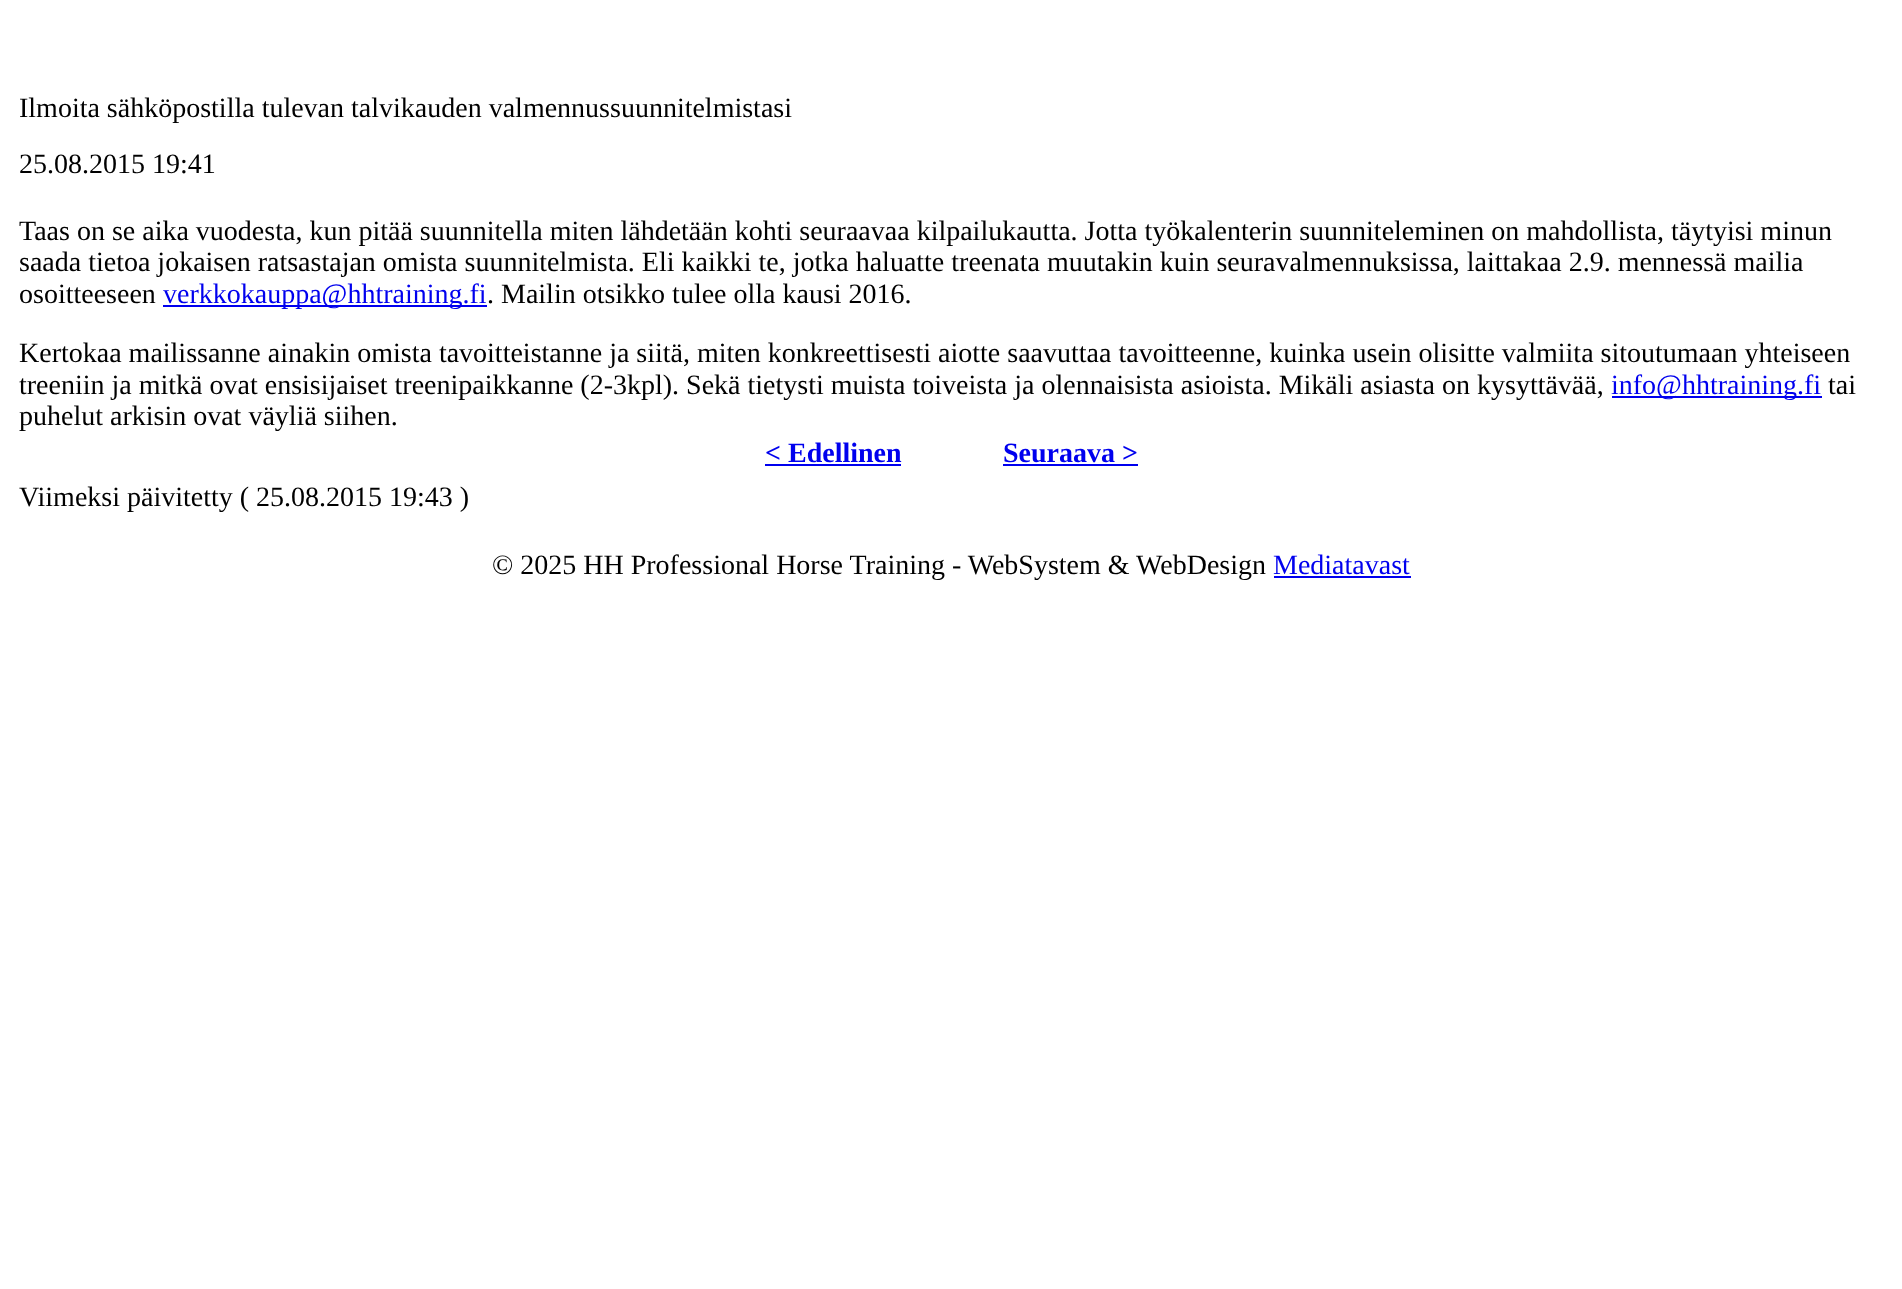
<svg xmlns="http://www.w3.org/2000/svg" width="1902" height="1289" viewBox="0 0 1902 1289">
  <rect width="100%" height="100%" fill="#fff"/>
  <path d="M163 305h324v2H163z" fill="#00e"/>
  <path d="M1612 396h210v2H1612z" fill="#00e"/>
  <path d="M765 464h136v2H765z" fill="#00e"/>
  <path d="M1003 464h135v2H1003z" fill="#00e"/>
  <path d="M1274 576h137v2H1274z" fill="#00e"/>
  <g font-family="Liberation Serif" font-size="28" fill="#000">
    <text x="19" y="117">Ilmoita sähköpostilla tulevan talvikauden valmennussuunnitelmistasi</text>
    <text x="19" y="173">25.08.2015 19:41</text>
    <text x="19" y="240">Taas on se aika vuodesta, kun pitää suunnitella miten lähdetään kohti seuraavaa kilpailukautta. Jotta työkalenterin suunniteleminen on mahdollista, täytyisi minun</text>
    <text x="19" y="271">saada tietoa jokaisen ratsastajan omista suunnitelmista. Eli kaikki te, jotka haluatte treenata muutakin kuin seuravalmennuksissa, laittakaa 2.9. mennessä mailia</text>
    <text x="19" y="303">osoitteeseen</text>
  </g>
  <text x="163" y="303" font-family="Liberation Serif" font-size="28" fill="#00e">verkkokauppa@hhtraining.fi</text>
  <g font-family="Liberation Serif" font-size="28" fill="#000">
    <text x="487" y="303">. Mailin otsikko tulee olla kausi 2016.</text>
    <text x="19" y="362">Kertokaa mailissanne ainakin omista tavoitteistanne ja siitä, miten konkreettisesti aiotte saavuttaa tavoitteenne, kuinka usein olisitte valmiita sitoutumaan yhteiseen</text>
    <text x="19" y="394">treeniin ja mitkä ovat ensisijaiset treenipaikkanne (2-3kpl). Sekä tietysti muista toiveista ja olennaisista asioista. Mikäli asiasta on kysyttävää,</text>
  </g>
  <text x="1611" y="394" font-family="Liberation Serif" font-size="28" fill="#00e">info@hhtraining.fi</text>
  <g font-family="Liberation Serif" font-size="28" fill="#000">
    <text x="1828" y="394">tai</text>
    <text x="19" y="425">puhelut arkisin ovat väyliä siihen.</text>
  </g>
  <g font-family="Liberation Serif" font-size="28" font-weight="bold" fill="#00e">
    <text x="765" y="462">&lt; Edellinen</text>
    <text x="1003" y="462">Seuraava &gt;</text>
  </g>
  <g font-family="Liberation Serif" font-size="28" fill="#000">
    <text x="19" y="506">Viimeksi päivitetty ( 25.08.2015 19:43 )</text>
    <text x="492" y="574">© 2025 HH Professional Horse Training - WebSystem &amp; WebDesign</text>
  </g>
  <text x="1273" y="574" font-family="Liberation Serif" font-size="28" fill="#00e">Mediatavast</text>
</svg>
